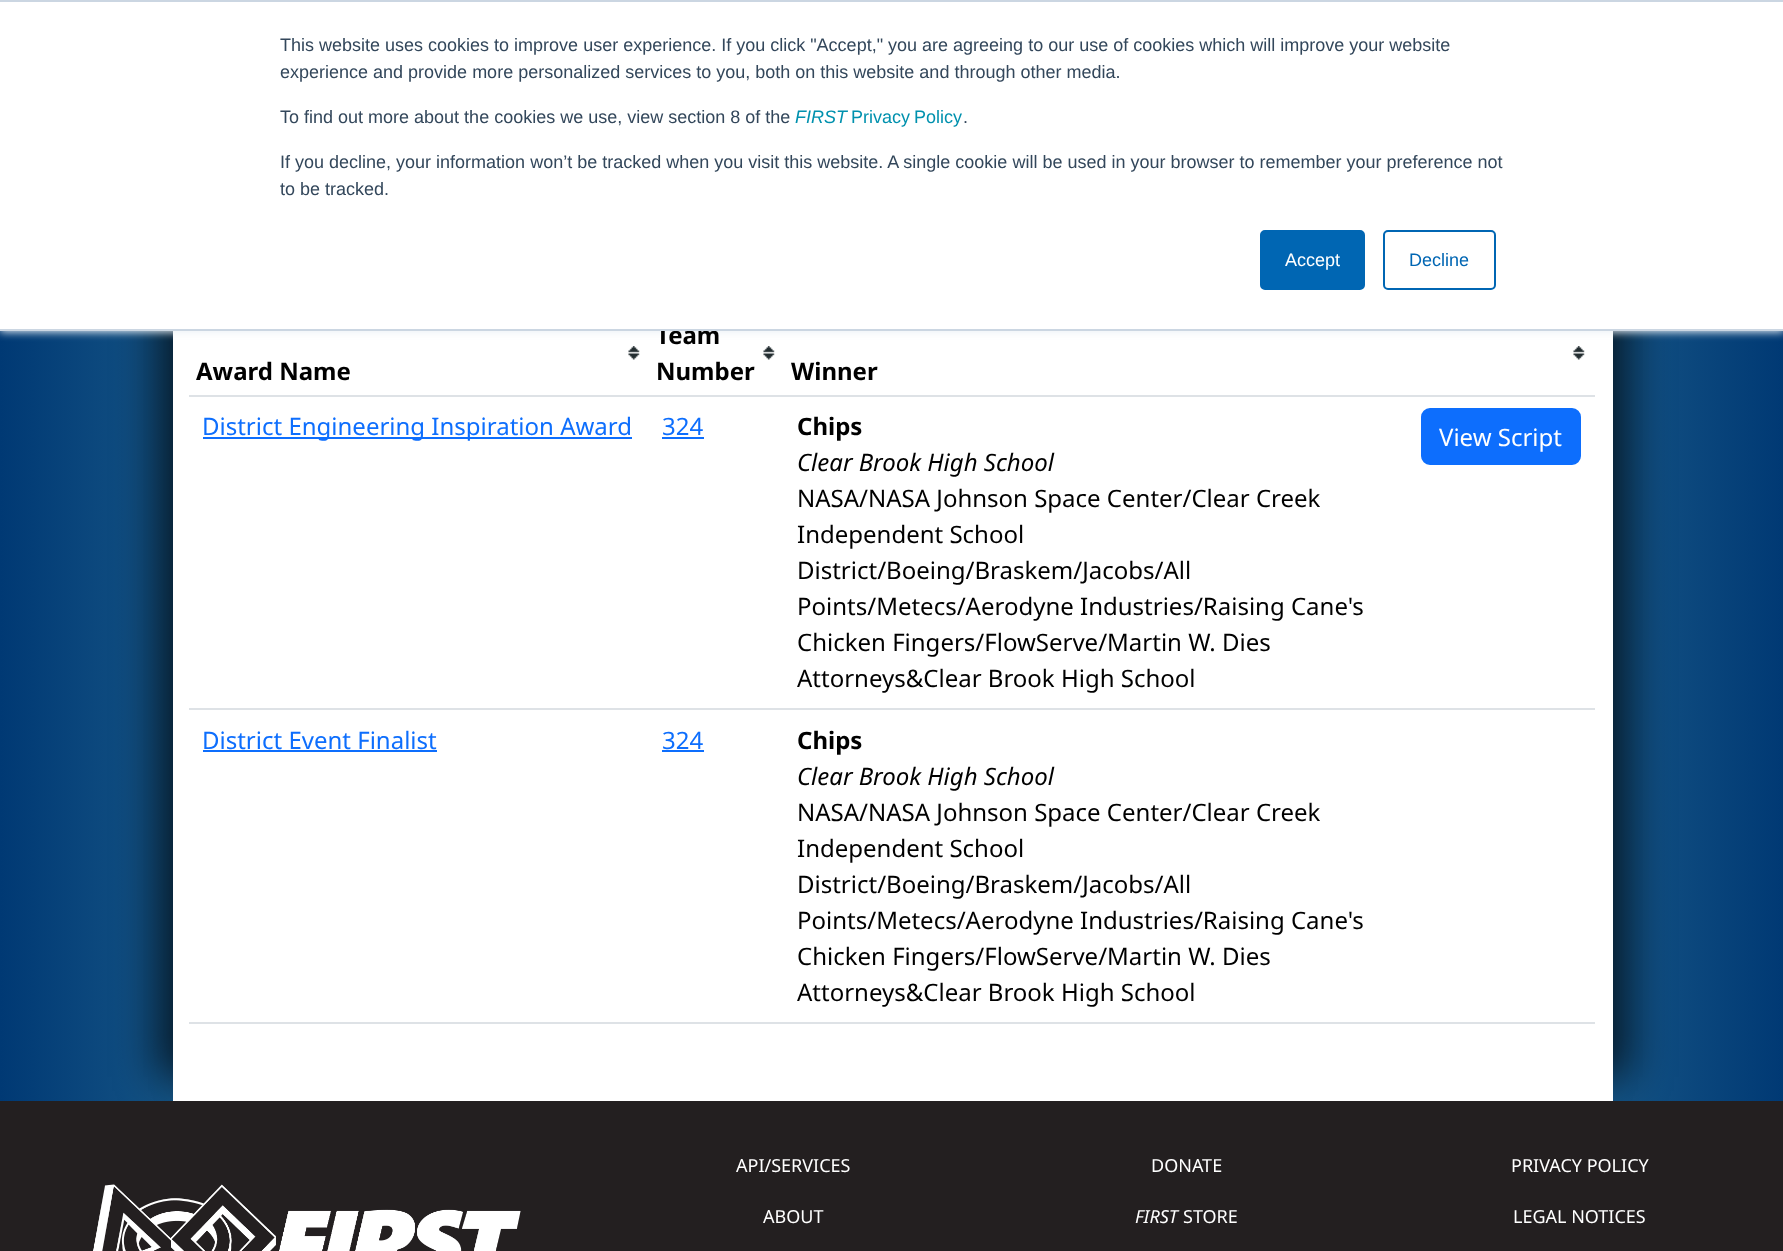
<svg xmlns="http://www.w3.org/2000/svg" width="1783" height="1251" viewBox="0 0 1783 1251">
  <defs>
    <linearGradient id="g1" gradientUnits="userSpaceOnUse" x1="0" y1="704" x2="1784" y2="704"><stop offset="0" stop-color="#003974"/><stop offset="0.5" stop-color="#6cc2c9"/><stop offset="1" stop-color="#003974"/></linearGradient>
  </defs>
  <rect width="100%" height="100%" fill="#fff"/>
  <path d="M0 331h1783v770H0z" fill="url(#g1)"/>
  <path d="M191 71h1440v1006H191z" fill="#00000099" filter="blur(21px)"/>
  <path d="M155 71h1440v1006H155z" fill="#00000099" filter="blur(21px)"/>
  <path d="M173 331h1440v770H173z" fill="#fff"/>
  <path d="M0 2h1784v330H0z" fill="#eaf0f6" filter="blur(4px)"/>
  <path d="M0 0h1783v2H0z" fill="#cbd6e2"/>
  <image x="628" y="346" width="12" height="14" href="img/1.png"/>
  <image x="763" y="346" width="12" height="14" href="img/1.png"/>
  <image x="1573" y="346" width="12" height="14" href="img/1.png"/>
  <path d="M189 395h1406v2H189z" fill="#dee2e6"/>
  <path d="M203 437h429v2H203z" fill="#0d6efd"/>
  <path d="M662 437h42v2H662z" fill="#0d6efd"/>
  <path d="M189 708h1406v2H189z" fill="#dee2e6"/>
  <rect x="1422" y="409" width="158" height="55" rx="8" fill="#0d6efd" stroke="#0d6efd" stroke-width="2"/>
  <path d="M203 750h234v2H203z" fill="#0d6efd"/>
  <path d="M662 750h42v2H662z" fill="#0d6efd"/>
  <path d="M189 1022h1406v2H189z" fill="#dee2e6"/>
  <path d="M0 1101h1783v150H0z" fill="#231f20"/>
  <image x="93" y="1184" width="428" height="67" href="img/2.png"/>
  <g font-family="Noto Sans" font-size="24" font-weight="bold" fill="#000">
    <text x="196" y="380">Award Name</text>
    <text x="656" y="344">Team</text>
  </g>
  <path d="M0 2h1783v327H0z" fill="#fff"/>
  <rect x="1384" y="231" width="111" height="58" rx="4" fill="none" stroke="#0066b3" stroke-width="2"/>
  <text x="1409" y="266" font-family="Liberation Sans" font-size="18" fill="#0066b3">Decline</text>
  <rect x="1261" y="231" width="103" height="58" rx="4" fill="#0066b3" stroke="#0066b3" stroke-width="2"/>
  <text x="1285" y="266" font-family="Liberation Sans" font-size="18" fill="#fff">Accept</text>
  <g font-family="Liberation Sans" font-size="18" fill="#33475b">
    <text x="280" y="195">to be tracked.</text>
    <text x="280" y="168">If you decline, your information won’t be tracked when you visit this website. A single cookie will be used in your browser to remember your preference not</text>
    <text x="963" y="123">.</text>
  </g>
  <text x="851" y="123" word-spacing="-1" font-family="Liberation Sans" font-size="18" fill="#0091ae">Privacy Policy</text>
  <text x="795" y="123" font-family="Liberation Sans" font-size="18" font-style="italic" fill="#0091ae">FIRST</text>
  <g font-family="Liberation Sans" font-size="18" fill="#33475b">
    <text x="280" y="123">To find out more about the cookies we use, view section 8 of the</text>
    <text x="280" y="78">experience and provide more personalized services to you, both on this website and through other media.</text>
    <text x="280" y="51">This website uses cookies to improve user experience. If you click "Accept," you are agreeing to our use of cookies which will improve your website</text>
  </g>
  <path d="M0 329h1783v2H0z" fill="#cbd6e2"/>
  <g font-family="Noto Sans" font-size="24" font-weight="bold" fill="#000">
    <text x="656" y="380">Number</text>
    <text x="791" y="380">Winner</text>
  </g>
  <g font-family="Noto Sans" font-size="24" fill="#0d6efd">
    <text x="202" y="435">District Engineering Inspiration Award</text>
    <text x="662" y="435">324</text>
  </g>
  <text x="797" y="435" font-family="Noto Sans" font-size="24" font-weight="bold" fill="#000">Chips</text>
  <text x="797" y="471" font-family="Noto Sans" font-size="24" font-style="italic" fill="#000">Clear Brook High School</text>
  <g font-family="Noto Sans" font-size="24" fill="#000">
    <text x="797" y="507">NASA/NASA Johnson Space Center/Clear Creek</text>
    <text x="797" y="543">Independent School</text>
    <text x="797" y="579">District/Boeing/Braskem/Jacobs/All</text>
    <text x="797" y="615">Points/Metecs/Aerodyne Industries/Raising Cane's</text>
    <text x="797" y="651">Chicken Fingers/FlowServe/Martin W. Dies</text>
    <text x="797" y="687">Attorneys&amp;Clear Brook High School</text>
  </g>
  <text x="1439" y="446" font-family="Noto Sans" font-size="24" fill="#fff">View Script</text>
  <g font-family="Noto Sans" font-size="24" fill="#0d6efd">
    <text x="202" y="749">District Event Finalist</text>
    <text x="662" y="749">324</text>
  </g>
  <text x="797" y="749" font-family="Noto Sans" font-size="24" font-weight="bold" fill="#000">Chips</text>
  <text x="797" y="785" font-family="Noto Sans" font-size="24" font-style="italic" fill="#000">Clear Brook High School</text>
  <g font-family="Noto Sans" font-size="24" fill="#000">
    <text x="797" y="821">NASA/NASA Johnson Space Center/Clear Creek</text>
    <text x="797" y="857">Independent School</text>
    <text x="797" y="893">District/Boeing/Braskem/Jacobs/All</text>
    <text x="797" y="929">Points/Metecs/Aerodyne Industries/Raising Cane's</text>
    <text x="797" y="965">Chicken Fingers/FlowServe/Martin W. Dies</text>
    <text x="797" y="1001">Attorneys&amp;Clear Brook High School</text>
  </g>
  <g font-family="Noto Sans" font-size="18" fill="#fff">
    <text x="736" y="1172">API/SERVICES</text>
    <text x="763" y="1223">ABOUT</text>
    <text x="1151" y="1172">DONATE</text>
  </g>
  <text x="1135" y="1223" font-family="Noto Sans" font-size="18" font-style="italic" fill="#fff">FIRST</text>
  <g font-family="Noto Sans" font-size="18" fill="#fff">
    <text x="1183" y="1223">STORE</text>
    <text x="1511" y="1172">PRIVACY POLICY</text>
    <text x="1513" y="1223">LEGAL NOTICES</text>
  </g>
</svg>
